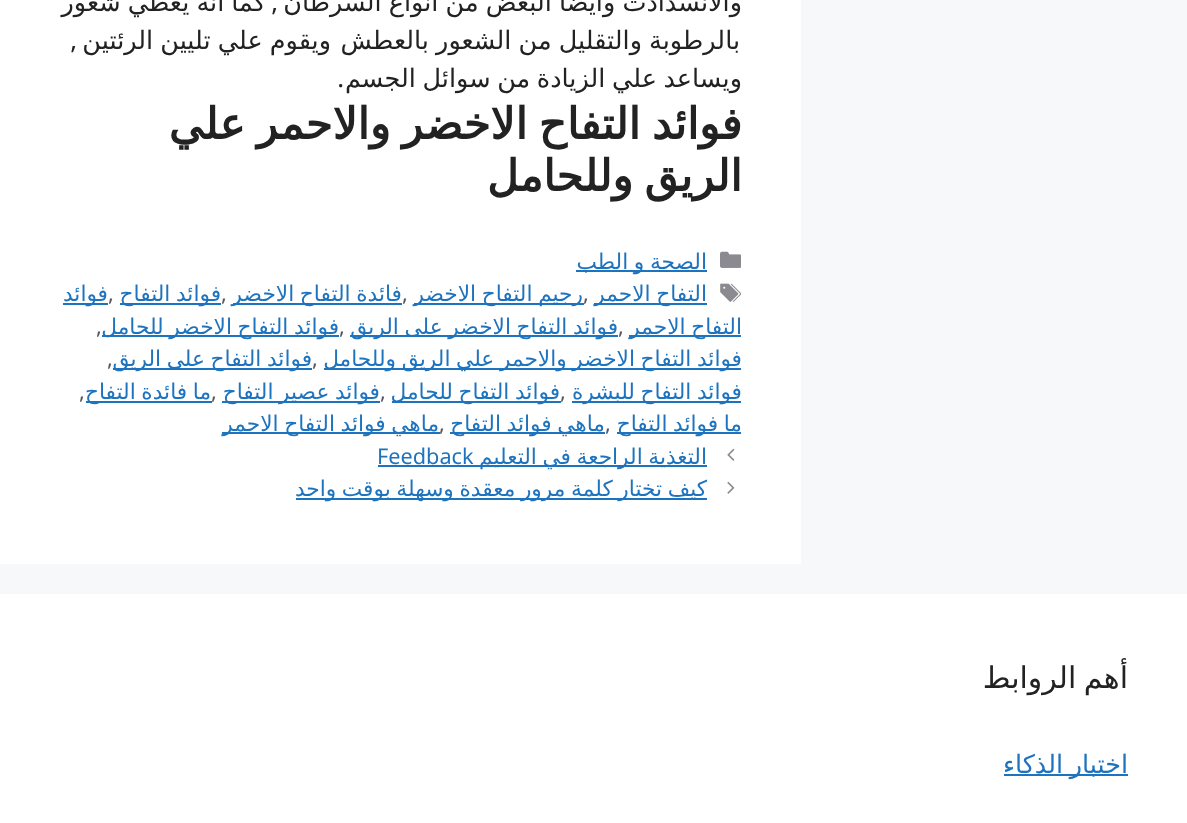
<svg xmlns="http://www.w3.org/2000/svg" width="1187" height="823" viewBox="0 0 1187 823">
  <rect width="100%" height="100%" fill="#f7f8f9"/>
  <path d="M0 0h801v564H0z" fill="#fff"/>
  <image x="720" y="251" width="21" height="17" href="img/1.png"/>
  <path d="M576 270h131v2H576z" fill="#1e73be"/>
  <image x="720" y="283" width="21" height="19" href="img/2.png"/>
  <path d="M594 303h113v2H594z" fill="#1e73be"/>
  <path d="M233 303h169v2H233z" fill="#1e73be"/>
  <path d="M120 303h101v2H120z" fill="#1e73be"/>
  <path d="M63 303h45v2H63z" fill="#1e73be"/>
  <path d="M629 335h112v2H629z" fill="#1e73be"/>
  <path d="M350 335h268v2H350z" fill="#1e73be"/>
  <path d="M102 335h237v2H102z" fill="#1e73be"/>
  <path d="M324 368h417v2H324z" fill="#1e73be"/>
  <path d="M113 368h199v2H113z" fill="#1e73be"/>
  <path d="M572 401h169v2H572z" fill="#1e73be"/>
  <path d="M392 401h169v2H392z" fill="#1e73be"/>
  <path d="M222 401h158v2H222z" fill="#1e73be"/>
  <path d="M86 401h126v2H86z" fill="#1e73be"/>
  <path d="M617 432h124v2H617z" fill="#1e73be"/>
  <path d="M450 432h155v2H450z" fill="#1e73be"/>
  <image x="727" y="448" width="8" height="13" href="img/3.png"/>
  <path d="M378 465h329v2H378z" fill="#1e73be"/>
  <image x="727" y="481" width="8" height="13" href="img/4.png"/>
  <path d="M296 498h411v2H296z" fill="#1e73be"/>
  <path d="M0 594h1187v229H0z" fill="#fff"/>
  <path d="M1004 774h124v2H1004z" fill="#1e73be"/>
  <text x="742" y="11" word-spacing="-1" font-family="DejaVu Sans" font-size="25.5" direction="rtl" fill="#222">والانسدادت وايضا البعض من انواع السرطان</text>
  <text x="278" y="11" font-family="Noto Sans" font-size="25.5" direction="rtl" fill="#222">,</text>
  <g font-family="DejaVu Sans" font-size="25.5" direction="rtl" fill="#222">
    <text x="266" y="11" word-spacing="-1">كما انه يعطي شعور</text>
    <text x="740" y="49" word-spacing="-1">بالرطوبة والتقليل من الشعور بالعطش</text>
    <text x="331" y="49" word-spacing="-1">ويقوم علي تليين الرئتين</text>
  </g>
  <text x="77" y="49" font-family="Noto Sans" font-size="25.5" direction="rtl" fill="#222">,</text>
  <text x="742" y="87" word-spacing="-1.5" font-family="DejaVu Sans" font-size="25.5" direction="rtl" fill="#222">ويساعد علي الزيادة من سوائل الجسم</text>
  <text x="344" y="87" font-family="Noto Sans" font-size="25.5" direction="rtl" fill="#222">.</text>
  <g font-family="DejaVu Sans" font-size="43.5" font-weight="bold" direction="rtl" fill="#222">
    <text x="742" y="139" word-spacing="-2.5">فوائد التفاح الاخضر والاحمر علي</text>
    <text x="742" y="191" word-spacing="-2.5">الريق وللحامل</text>
  </g>
  <g font-family="DejaVu Sans" font-size="21.7" direction="rtl" fill="#1e73be">
    <text x="707" y="269" word-spacing="-1.25">الصحة و الطب</text>
    <text x="707" y="301" word-spacing="-1.25">التفاح الاحمر</text>
  </g>
  <text x="583" y="301" font-family="Noto Sans" font-size="21.7" fill="#575760">,</text>
  <path d="M414 303h170v2H414z" fill="#1e73be"/>
  <text x="583" y="301" word-spacing="-1.25" font-family="DejaVu Sans" font-size="21.7" direction="rtl" fill="#1e73be">رجيم التفاح الاخضر</text>
  <text x="402" y="301" font-family="Noto Sans" font-size="21.7" fill="#575760">,</text>
  <text x="402" y="301" word-spacing="-1.25" font-family="DejaVu Sans" font-size="21.7" direction="rtl" fill="#1e73be">فائدة التفاح الاخضر</text>
  <text x="221" y="301" font-family="Noto Sans" font-size="21.7" fill="#575760">,</text>
  <text x="221" y="301" word-spacing="-1.25" font-family="DejaVu Sans" font-size="21.7" direction="rtl" fill="#1e73be">فوائد التفاح</text>
  <text x="108" y="301" font-family="Noto Sans" font-size="21.7" fill="#575760">,</text>
  <g font-family="DejaVu Sans" font-size="21.7" direction="rtl" fill="#1e73be">
    <text x="108" y="301">فوائد</text>
    <text x="742" y="334" word-spacing="-1.25">التفاح الاحمر</text>
  </g>
  <g font-family="Noto Sans" font-size="21.7" fill="#575760">
    <text x="96" y="334">,</text>
    <text x="618" y="334">,</text>
  </g>
  <text x="618" y="334" word-spacing="-1.25" font-family="DejaVu Sans" font-size="21.7" direction="rtl" fill="#1e73be">فوائد التفاح الاخضر على الريق</text>
  <text x="339" y="334" font-family="Noto Sans" font-size="21.7" fill="#575760">,</text>
  <g font-family="DejaVu Sans" font-size="21.7" direction="rtl" fill="#1e73be">
    <text x="339" y="334" word-spacing="-1.25">فوائد التفاح الاخضر للحامل</text>
    <text x="742" y="366" word-spacing="-1.25">فوائد التفاح الاخضر والاحمر علي الريق وللحامل</text>
  </g>
  <g font-family="Noto Sans" font-size="21.7" fill="#575760">
    <text x="107" y="366">,</text>
    <text x="312" y="366">,</text>
  </g>
  <g font-family="DejaVu Sans" font-size="21.7" direction="rtl" fill="#1e73be">
    <text x="312" y="366" word-spacing="-1.25">فوائد التفاح على الريق</text>
    <text x="742" y="399" word-spacing="-1.25">فوائد التفاح للبشرة</text>
  </g>
  <text x="560" y="399" font-family="Noto Sans" font-size="21.7" fill="#575760">,</text>
  <text x="560" y="399" word-spacing="-1.25" font-family="DejaVu Sans" font-size="21.7" direction="rtl" fill="#1e73be">فوائد التفاح للحامل</text>
  <text x="380" y="399" font-family="Noto Sans" font-size="21.7" fill="#575760">,</text>
  <text x="380" y="399" word-spacing="-1.25" font-family="DejaVu Sans" font-size="21.7" direction="rtl" fill="#1e73be">فوائد عصير التفاح</text>
  <text x="211" y="399" font-family="Noto Sans" font-size="21.7" fill="#575760">,</text>
  <text x="211" y="399" word-spacing="-1.25" font-family="DejaVu Sans" font-size="21.7" direction="rtl" fill="#1e73be">ما فائدة التفاح</text>
  <text x="79" y="399" font-family="Noto Sans" font-size="21.7" fill="#575760">,</text>
  <text x="742" y="431" word-spacing="-1.25" font-family="DejaVu Sans" font-size="21.7" direction="rtl" fill="#1e73be">ما فوائد التفاح</text>
  <text x="605" y="431" font-family="Noto Sans" font-size="21.7" fill="#575760">,</text>
  <text x="605" y="431" word-spacing="-1.25" font-family="DejaVu Sans" font-size="21.7" direction="rtl" fill="#1e73be">ماهي فوائد التفاح</text>
  <text x="439" y="431" font-family="Noto Sans" font-size="21.7" fill="#575760">,</text>
  <path d="M222 432h218v2H222z" fill="#1e73be"/>
  <g font-family="DejaVu Sans" font-size="21.7" direction="rtl" fill="#1e73be">
    <text x="439" y="431" word-spacing="-1.25">ماهي فوائد التفاح الاحمر</text>
    <text x="707" y="464" word-spacing="-1.25">التغذية الراجعة في التعليم</text>
  </g>
  <text x="377" y="464" font-family="Noto Sans" font-size="21.7" fill="#1e73be">Feedback</text>
  <text x="707" y="496" word-spacing="-1.25" font-family="DejaVu Sans" font-size="21.7" direction="rtl" fill="#1e73be">كيف تختار كلمة مرور معقدة وسهلة بوقت واحد</text>
  <text x="1128" y="688" word-spacing="-2" font-family="DejaVu Sans" font-size="30" direction="rtl" fill="#222">أهم الروابط</text>
  <text x="1128" y="773" word-spacing="-1.5" font-family="DejaVu Sans" font-size="25.5" direction="rtl" fill="#1e73be">اختبار الذكاء</text>
</svg>
